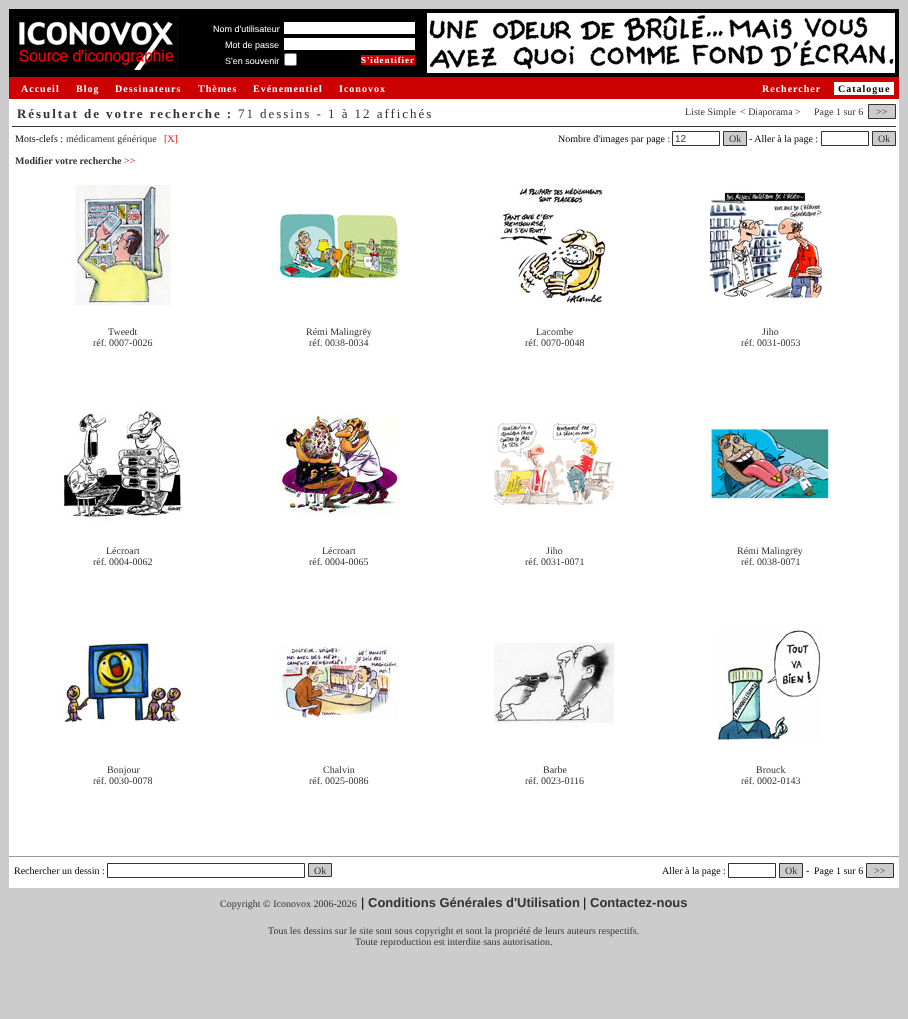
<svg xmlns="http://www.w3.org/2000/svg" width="908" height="1019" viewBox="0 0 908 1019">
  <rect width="100%" height="100%" fill="#ccc"/>
  <path d="M9 9h890v68H9z" fill="#000"/>
  <image x="13" y="16" width="165" height="54" href="img/1.png"/>
  <path d="M284 22h131v12H284z" fill="#fff"/>
  <path d="M284 38h131v12H284z" fill="#fff"/>
  <rect x="284.5" y="53.5" width="12" height="12" rx="1.5" fill="#fff" stroke="#767676"/>
  <path d="M361 55h54v10H361z" fill="#c00"/>
  <image x="427" y="13" width="468" height="60" href="img/2.png"/>
  <path d="M9 77h890v22H9z" fill="#c00"/>
  <path d="M834 82h60v13H834z" fill="#fff"/>
  <path d="M9 99h890v789H9z" fill="#fff"/>
  <path d="M12 126h884v1H12z" fill="#333"/>
  <path d="M868.5 104.5h27v14H868.5z" fill="#ccc" stroke="#333"/>
  <path d="M672.5 131.5h47v14H672.5z" fill="none" stroke="#333"/>
  <path d="M723.5 131.5h23v14H723.5z" fill="#ccc" stroke="#333"/>
  <path d="M821.5 131.5h47v14H821.5z" fill="none" stroke="#333"/>
  <path d="M872.5 131.5h23v14H872.5z" fill="#ccc" stroke="#333"/>
  <image x="71" y="185" width="103" height="120" href="img/3.png"/>
  <image x="279" y="209" width="120" height="72" href="img/4.png"/>
  <image x="494" y="185" width="112" height="120" href="img/5.png"/>
  <image x="710" y="191" width="114" height="114" href="img/6.png"/>
  <image x="63" y="404" width="120" height="120" href="img/7.png"/>
  <image x="279" y="412" width="120" height="104" href="img/8.png"/>
  <image x="494" y="420" width="120" height="88" href="img/9.png"/>
  <image x="710" y="428" width="120" height="72" href="img/10.png"/>
  <image x="63" y="639" width="120" height="88" href="img/11.png"/>
  <image x="279" y="647" width="120" height="72" href="img/12.png"/>
  <image x="494" y="639" width="120" height="88" href="img/13.png"/>
  <image x="718" y="628" width="104" height="115" href="img/14.png"/>
  <path d="M9 856h890v1H9z" fill="#999"/>
  <path d="M107.5 863.5h197v14H107.5z" fill="none" stroke="#333"/>
  <path d="M308.5 863.5h23v13H308.5z" fill="#ccc" stroke="#333"/>
  <path d="M728.5 863.5h47v14H728.5z" fill="none" stroke="#333"/>
  <path d="M779.5 863.5h23v14H779.5z" fill="#ccc" stroke="#333"/>
  <path d="M866.5 863.5h27v14H866.5z" fill="#ccc" stroke="#333"/>
  <g font-family="Liberation Sans" font-size="9" fill="#fff">
    <text x="213" y="32">Nom d'utilisateur</text>
    <text x="225" y="48">Mot de passe</text>
    <text x="225" y="64">S'en souvenir</text>
  </g>
  <text x="361" y="63" font-family="Liberation Serif" font-size="9" font-weight="bold" letter-spacing="0.9" fill="#fff">S'identifier</text>
  <g font-family="Liberation Serif" font-size="10" font-weight="bold" letter-spacing="1" fill="#fff">
    <text x="21" y="92">Accueil</text>
    <text x="76" y="92">Blog</text>
    <text x="115" y="92">Dessinateurs</text>
    <text x="198" y="92">Thèmes</text>
    <text x="253" y="92">Evénementiel</text>
    <text x="339" y="92">Iconovox</text>
    <text x="762" y="92">Rechercher</text>
  </g>
  <text x="838" y="92" font-family="Liberation Serif" font-size="10" font-weight="bold" letter-spacing="1" fill="#000">Catalogue</text>
  <text x="17" y="118" font-family="Liberation Serif" font-size="13" font-weight="bold" letter-spacing="1.95" fill="#333">Résultat de votre recherche :</text>
  <text x="238" y="118" font-family="Liberation Serif" font-size="13" letter-spacing="1.95" fill="#333">71 dessins - 1 à 12 affichés</text>
  <g font-family="Liberation Serif" font-size="10" fill="#333">
    <text x="685" y="115">Liste Simple</text>
    <text x="740" y="115">&lt; Diaporama &gt;</text>
    <text x="814" y="115">Page 1 sur 6</text>
    <text x="876" y="115">&gt;&gt;</text>
  </g>
  <text x="15" y="142" font-family="Liberation Serif" font-size="10" fill="#000">Mots-clefs :</text>
  <text x="66" y="142" font-family="Liberation Serif" font-size="10" fill="#333">médicament générique</text>
  <text x="164" y="142" font-family="Liberation Serif" font-size="10" fill="#f00">[X]</text>
  <text x="15" y="164" font-family="Liberation Serif" font-size="10" font-weight="bold" fill="#333">Modifier votre recherche</text>
  <text x="124" y="164" font-family="Liberation Serif" font-size="10" fill="#c00">&gt;&gt;</text>
  <text x="558" y="142" font-family="Liberation Serif" font-size="10" fill="#000">Nombre d'images par page :</text>
  <text x="675" y="142" font-family="Liberation Sans" font-size="10" fill="#333">12</text>
  <text x="729" y="142" font-family="Liberation Serif" font-size="10" fill="#333">Ok</text>
  <text x="749" y="142" font-family="Liberation Serif" font-size="10" fill="#000">- Aller à la page :</text>
  <g font-family="Liberation Serif" font-size="10" fill="#333">
    <text x="878" y="142">Ok</text>
    <text x="108" y="335">Tweedt</text>
    <text x="93" y="346">réf. 0007-0026</text>
    <text x="306" y="335">Rémi Malingrëy</text>
    <text x="309" y="346">réf. 0038-0034</text>
    <text x="536" y="335">Lacombe</text>
    <text x="525" y="346">réf. 0070-0048</text>
    <text x="762" y="335">Jiho</text>
    <text x="741" y="346">réf. 0031-0053</text>
    <text x="106" y="554">Lécroart</text>
    <text x="93" y="565">réf. 0004-0062</text>
    <text x="322" y="554">Lécroart</text>
    <text x="309" y="565">réf. 0004-0065</text>
    <text x="546" y="554">Jiho</text>
    <text x="525" y="565">réf. 0031-0071</text>
    <text x="737" y="554">Rémi Malingrëy</text>
    <text x="741" y="565">réf. 0038-0071</text>
    <text x="107" y="773">Bonjour</text>
    <text x="93" y="784">réf. 0030-0078</text>
    <text x="323" y="773">Chalvin</text>
    <text x="309" y="784">réf. 0025-0086</text>
    <text x="543" y="773">Barbe</text>
    <text x="525" y="784">réf. 0023-0116</text>
    <text x="756" y="773">Brouck</text>
    <text x="741" y="784">réf. 0002-0143</text>
  </g>
  <text x="14" y="874" font-family="Liberation Serif" font-size="10" fill="#000">Rechercher un dessin :</text>
  <text x="314" y="874" font-family="Liberation Serif" font-size="10" fill="#333">Ok</text>
  <text x="662" y="874" font-family="Liberation Serif" font-size="10" fill="#000">Aller à la page :</text>
  <text x="785" y="874" font-family="Liberation Serif" font-size="10" fill="#333">Ok</text>
  <g font-family="Liberation Serif" font-size="10" fill="#000">
    <text x="806" y="874">-</text>
    <text x="814" y="874">Page 1 sur 6</text>
  </g>
  <g font-family="Liberation Serif" font-size="10" fill="#333">
    <text x="874" y="874">&gt;&gt;</text>
    <text x="220" y="907">Copyright © Iconovox 2006-2026</text>
  </g>
  <text x="361" y="907" font-family="Liberation Sans" font-size="13" fill="#000">|</text>
  <text x="368" y="907" font-family="Liberation Sans" font-size="13" font-weight="bold" fill="#333">Conditions Générales d'Utilisation</text>
  <text x="583" y="907" font-family="Liberation Sans" font-size="13" fill="#000">|</text>
  <text x="590" y="907" font-family="Liberation Sans" font-size="13" font-weight="bold" fill="#333">Contactez-nous</text>
  <g font-family="Liberation Serif" font-size="10" fill="#333">
    <text x="268" y="934">Tous les dessins sur le site sont sous copyright et sont la propriété de leurs auteurs respectifs.</text>
    <text x="355" y="945">Toute reproduction est interdite sans autorisation.</text>
  </g>
</svg>
